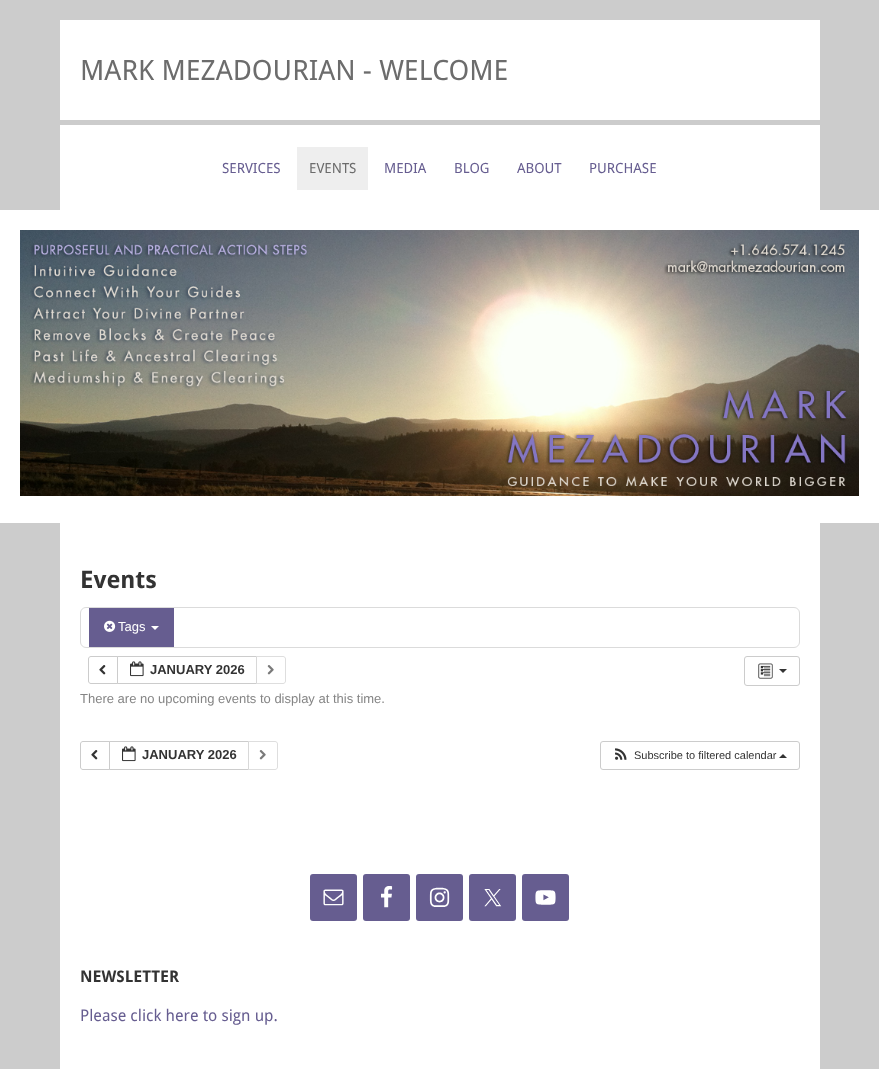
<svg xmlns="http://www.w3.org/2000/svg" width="879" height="1069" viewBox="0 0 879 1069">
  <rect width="100%" height="100%" fill="#ccc"/>
  <path d="M60 20h760v100H60z" fill="#fff"/>
  <path d="M60 125h760v85H60z" fill="#fff"/>
  <path d="M297 147h71v43H297z" fill="#eee"/>
  <path d="M0 210h879v313H0z" fill="#fff"/>
  <image x="20" y="230" width="839" height="266" href="img/1.png"/>
  <path d="M60 523h760v546H60z" fill="#fff"/>
  <rect x="80.5" y="607.5" width="719" height="40" rx="5.5" fill="none" stroke="#dbdbdb"/>
  <path d="M89 608h85v39H89z" fill="#665d90"/>
  <image x="104" y="620" width="12" height="12" href="img/2.png"/>
  <path d="M151 626H159L155 630Z" fill="#fff"/>
  <path d="M91 656.5H117.5V683.5H91C89.5 683.5 88.5 682.5 88.5 681V659C88.5 657.5 89.5 656.5 91 656.5Z" fill="none" stroke="#ccc"/>
  <image x="99" y="665" width="7" height="10" href="img/3.png"/>
  <path d="M117.5 656.5h139v27H117.5z" fill="none" stroke="#ccc"/>
  <image x="130" y="661" width="14" height="16" href="img/4.png"/>
  <path d="M256 656H283C284.5 656 286 657.5 286 659V681C286 682.5 284.5 684 283 684H256Z" fill="#ffffffa6"/>
  <path d="M256.5 656.5H283C284.5 656.5 285.5 657.5 285.5 659V681C285.5 682.5 284.5 683.5 283 683.5H256.5Z" fill="none" stroke="#cccccca6"/>
  <image x="267" y="665" width="7" height="10" href="img/5.png"/>
  <rect x="744.5" y="656.5" width="55" height="29" rx="2.5" fill="none" stroke="#ccc"/>
  <image x="758" y="663" width="15" height="16" href="img/6.png"/>
  <path d="M779 669H787L783 673Z" fill="#333"/>
  <path d="M83 741.5H109.5V769.5H83C81.5 769.5 80.5 768.5 80.5 767V744C80.5 742.5 81.5 741.5 83 741.5Z" fill="none" stroke="#ccc"/>
  <image x="91" y="750" width="7" height="10" href="img/3.png"/>
  <path d="M109.5 741.5h139v28H109.5z" fill="none" stroke="#ccc"/>
  <image x="122" y="746" width="14" height="16" href="img/4.png"/>
  <path d="M248 741H275C276.5 741 278 742.5 278 744V767C278 768.5 276.5 770 275 770H248Z" fill="#ffffffa6"/>
  <path d="M248.5 741.5H275C276.5 741.5 277.5 742.5 277.5 744V767C277.5 768.5 276.5 769.5 275 769.5H248.5Z" fill="none" stroke="#cccccca6"/>
  <image x="259" y="750" width="7" height="10" href="img/5.png"/>
  <rect x="600.5" y="741.5" width="199" height="28" rx="2.5" fill="none" stroke="#ccc"/>
  <image x="615" y="748" width="12" height="12" href="img/7.png"/>
  <path d="M787 758H779L783 754Z" fill="#333"/>
  <rect x="310" y="874" width="47" height="47" rx="3" fill="#665d90"/>
  <image x="323" y="889" width="21" height="17" href="img/8.png"/>
  <rect x="363" y="874" width="47" height="47" rx="3" fill="#665d90"/>
  <image x="381" y="886" width="12" height="22" href="img/9.png"/>
  <rect x="416" y="874" width="47" height="47" rx="3" fill="#665d90"/>
  <image x="429" y="887" width="21" height="20" href="img/10.png"/>
  <rect x="469" y="874" width="47" height="47" rx="3" fill="#665d90"/>
  <image x="484" y="889" width="18" height="18" href="img/11.png"/>
  <rect x="522" y="874" width="47" height="47" rx="3" fill="#665d90"/>
  <image x="535" y="890" width="21" height="15" href="img/12.png"/>
  <text x="80" y="80" font-family="Droid Sans" font-size="28" fill="#6c6c6c">MARK MEZADOURIAN - WELCOME</text>
  <text x="222" y="173" font-family="Droid Sans" font-size="14" fill="#665d90">SERVICES</text>
  <text x="309" y="173" font-family="Droid Sans" font-size="14" fill="#6c6c6c">EVENTS</text>
  <g font-family="Droid Sans" font-size="14" fill="#665d90">
    <text x="384" y="173">MEDIA</text>
    <text x="454" y="173">BLOG</text>
    <text x="517" y="173">ABOUT</text>
    <text x="589" y="173">PURCHASE</text>
  </g>
  <text x="80" y="588" font-family="Droid Sans" font-size="24" font-weight="bold" fill="#333">Events</text>
  <text x="118" y="631" font-family="Liberation Sans" font-size="13" fill="#fff">Tags</text>
  <text x="150" y="674" font-family="Liberation Sans" font-size="13" font-weight="bold" fill="#333">JANUARY 2026</text>
  <text x="80" y="703" font-family="Liberation Sans" font-size="13" fill="#858585">There are no upcoming events to display at this time.</text>
  <text x="142" y="759" font-family="Liberation Sans" font-size="13" font-weight="bold" fill="#333">JANUARY 2026</text>
  <text x="634" y="759" font-family="Liberation Sans" font-size="11" fill="#333">Subscribe to filtered calendar</text>
  <text x="80" y="982" font-family="Droid Sans" font-size="16" font-weight="bold" fill="#333">NEWSLETTER</text>
  <text x="80" y="1021" font-family="Droid Sans" font-size="16" fill="#665d90">Please click here to sign up.</text>
</svg>
